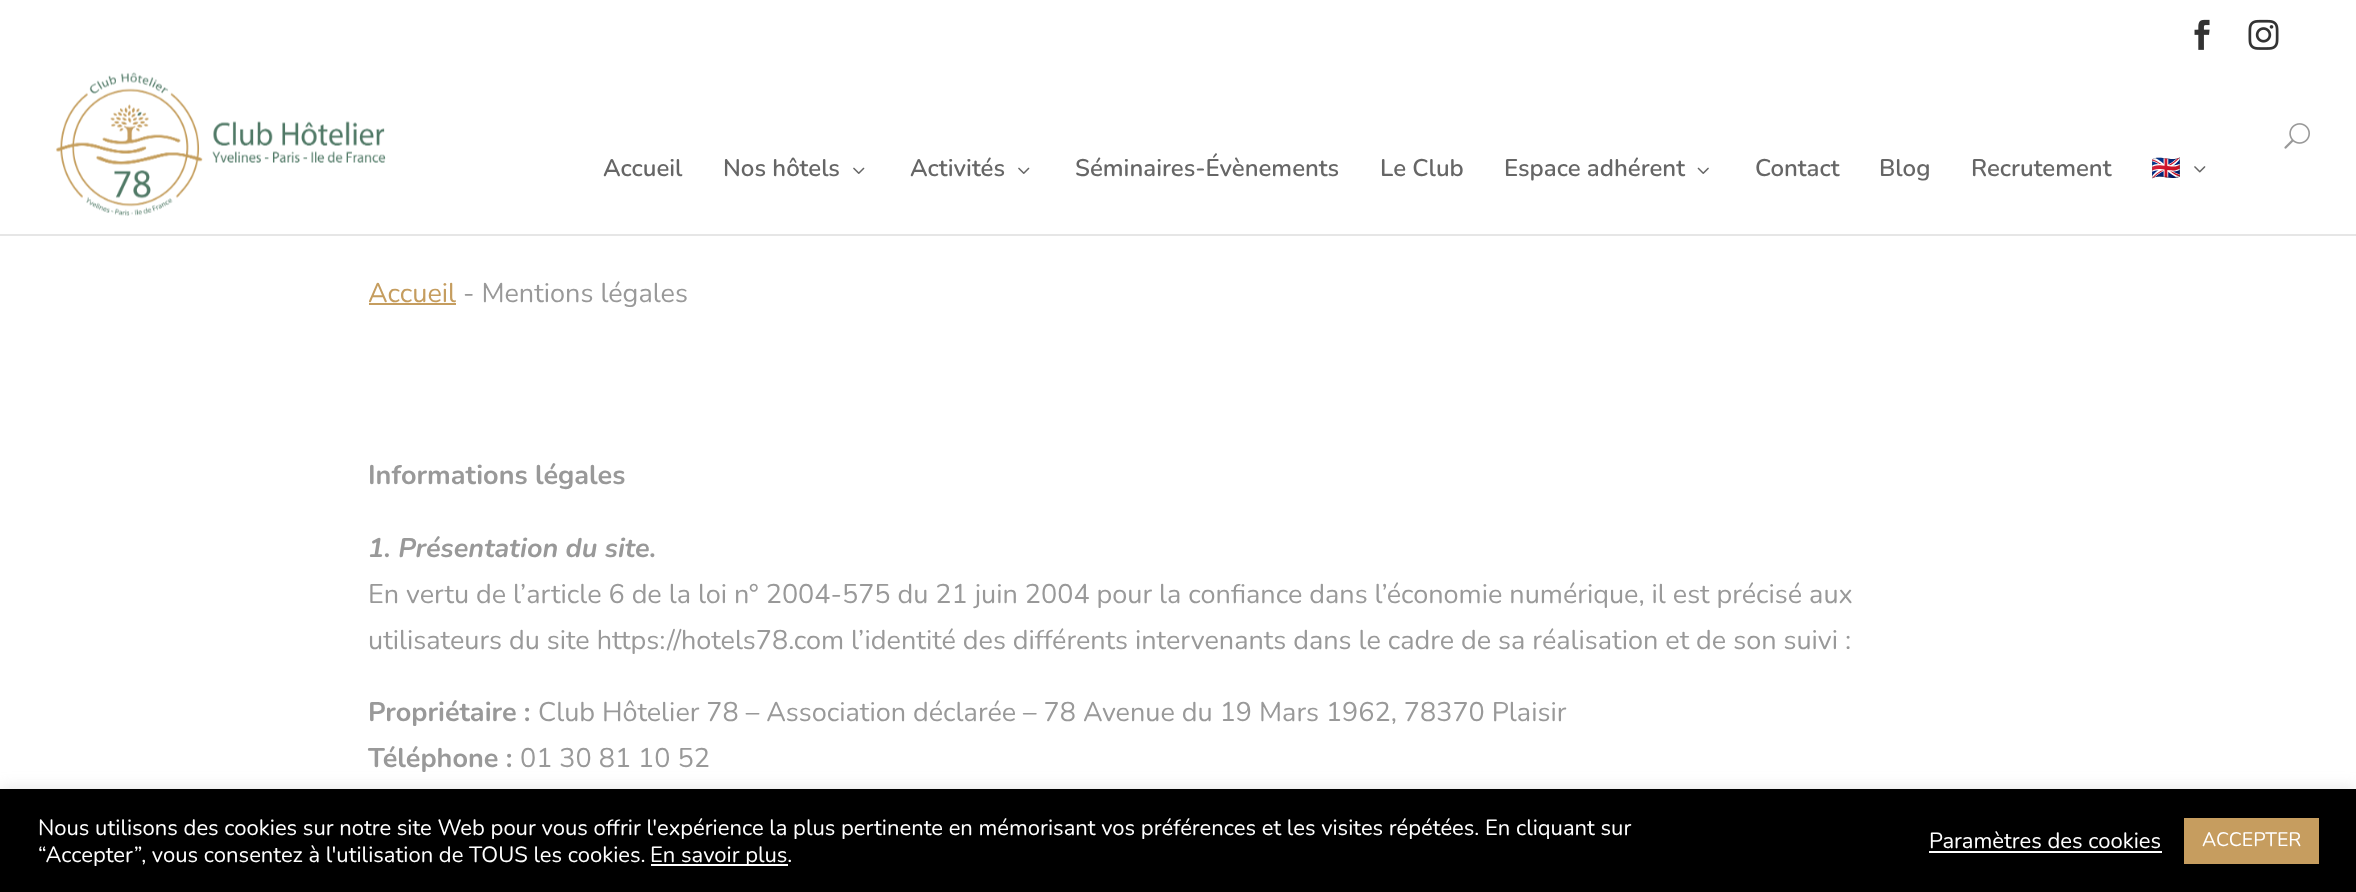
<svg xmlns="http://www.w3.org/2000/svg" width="2356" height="892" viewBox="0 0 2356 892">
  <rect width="100%" height="100%" fill="#fff"/>
  <image x="2194" y="19" width="16" height="31" href="img/1.png"/>
  <image x="2248" y="19" width="31" height="31" href="img/2.png"/>
  <path d="M0 234V236H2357V71H2356V234Z" fill="#e6e6e6"/>
  <image x="56" y="72" width="330" height="144" href="img/3.png"/>
  <image x="2284" y="123" width="26" height="26" href="img/4.png"/>
  <image x="853" y="167" width="12" height="7" href="img/5.png"/>
  <image x="1018" y="167" width="12" height="7" href="img/5.png"/>
  <image x="1697" y="167" width="12" height="7" href="img/6.png"/>
  <image x="2194" y="166" width="12" height="7" href="img/7.png"/>
  <path d="M369 303h87v2H369z" fill="#c59d5f"/>
  <path d="M0 788h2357v103H0z" fill="#acabab4d" filter="blur(7.5px)"/>
  <path d="M0 789h2356v103H0z" fill="#000"/>
  <path d="M651 864h137v2H651z" fill="#fff"/>
  <path d="M1929 851h233v2H1929z" fill="#fff"/>
  <path d="M2184 818h135v46H2184z" fill="#c69d5f"/>
  <g font-family="'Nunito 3'" font-size="24" font-weight="200" fill="#666">
    <text x="603" y="176">Accueil</text>
    <text x="723" y="176">Nos hôtels</text>
    <text x="910" y="176">Activités</text>
    <text x="1075" y="176">Séminaires-Évènements</text>
    <text x="1380" y="176">Le Club</text>
    <text x="1504" y="176">Espace adhérent</text>
    <text x="1755" y="176">Contact</text>
    <text x="1879" y="176">Blog</text>
    <text x="1971" y="176">Recrutement</text>
  </g>
  <text x="2151" y="176" font-family="Noto Color Emoji" font-size="24" font-weight="bold" fill="#666">🇬🇧</text>
  <text x="368" y="302" font-family="Nunito" font-size="27" font-weight="200" fill="#c59d5f">Accueil</text>
  <text x="463" y="302" font-family="Nunito" font-size="27" font-weight="200" fill="#999">- Mentions légales</text>
  <text x="368" y="484" font-family="'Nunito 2'" font-size="27" font-weight="200" fill="#999">Informations légales</text>
  <text x="368" y="557" font-family="Nunito" font-size="27" font-weight="200" font-style="italic" fill="#999">1. Présentation du site.</text>
  <g font-family="Nunito" font-size="27" font-weight="200" fill="#999">
    <text x="368" y="603">En vertu de l’article 6 de la loi n° 2004-575 du 21 juin 2004 pour la confiance dans l’économie numérique, il est précisé aux</text>
    <text x="368" y="649">utilisateurs du site https://hotels78.com l’identité des différents intervenants dans le cadre de sa réalisation et de son suivi :</text>
  </g>
  <text x="368" y="721" font-family="'Nunito 2'" font-size="27" font-weight="200" fill="#999">Propriétaire :</text>
  <text x="538" y="721" font-family="Nunito" font-size="27" font-weight="200" fill="#999">Club Hôtelier 78 – Association déclarée – 78 Avenue du 19 Mars 1962, 78370 Plaisir</text>
  <text x="368" y="767" font-family="'Nunito 2'" font-size="27" font-weight="200" fill="#999">Téléphone :</text>
  <text x="520" y="767" font-family="Nunito" font-size="27" font-weight="200" fill="#999">01 30 81 10 52</text>
  <g font-family="Nunito" font-size="22" font-weight="200" fill="#fff">
    <text x="38" y="835">Nous utilisons des cookies sur notre site Web pour vous offrir l'expérience la plus pertinente en mémorisant vos préférences et les visites répétées. En cliquant sur</text>
    <text x="38" y="862">“Accepter”, vous consentez à l'utilisation de TOUS les cookies.</text>
    <text x="650" y="862">En savoir plus.</text>
    <text x="1929" y="848">Paramètres des cookies</text>
  </g>
  <text x="2202" y="846" font-family="Nunito" font-size="19.5" font-weight="200" fill="#fff">ACCEPTER</text>
</svg>
